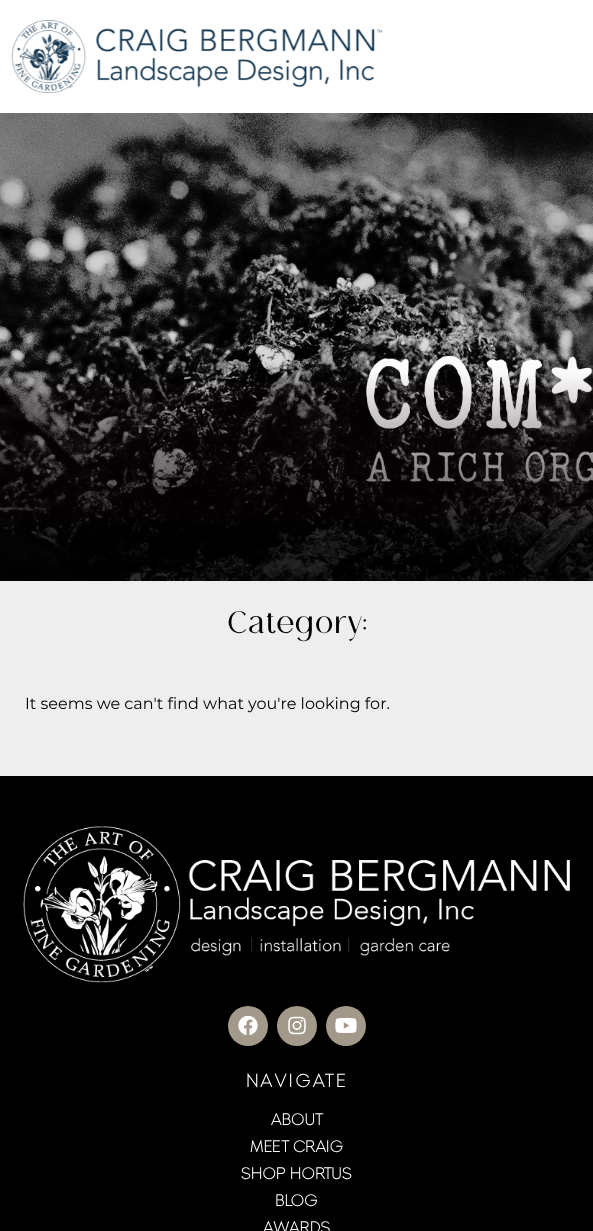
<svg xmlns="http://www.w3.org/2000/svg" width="593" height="1231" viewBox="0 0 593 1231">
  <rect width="100%" height="100%" fill="#fff"/>
  <image x="11" y="20" width="371" height="73" href="img/1.png"/>
  <image x="0" y="113" width="593" height="468" href="img/2.png"/>
  <path d="M0 581h593v195H0z" fill="#eee"/>
  <path d="M0 776h593v455H0z" fill="#000"/>
  <image x="23" y="826" width="547" height="157" href="img/3.png"/>
  <circle cx="248" cy="1026" r="20" fill="#a2998a"/>
  <image x="238" y="1015" width="20" height="20" href="img/4.png"/>
  <circle cx="297" cy="1026" r="20" fill="#a2998a"/>
  <image x="288" y="1016" width="18" height="19" href="img/5.png"/>
  <circle cx="346" cy="1026" r="20" fill="#a2998a"/>
  <image x="335" y="1018" width="22" height="15" href="img/6.png"/>
  <text x="227" y="633" font-family="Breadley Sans" font-size="41.5" fill="#000">Category:</text>
  <text x="25" y="709" font-family="Montserrat" font-size="16" fill="#000">It seems we can't find what you're looking for.</text>
  <text x="246" y="1087" font-family="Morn" font-size="18" font-weight="bold" letter-spacing="2.5" fill="#fff">NAVIGATE</text>
  <g font-family="Morn" font-size="16" font-weight="bold" fill="#fff">
    <text x="271" y="1125">ABOUT</text>
    <text x="250" y="1152">MEET CRAIG</text>
    <text x="241" y="1179">SHOP HORTUS</text>
    <text x="275" y="1206">BLOG</text>
    <text x="263" y="1233">AWARDS</text>
  </g>
</svg>
